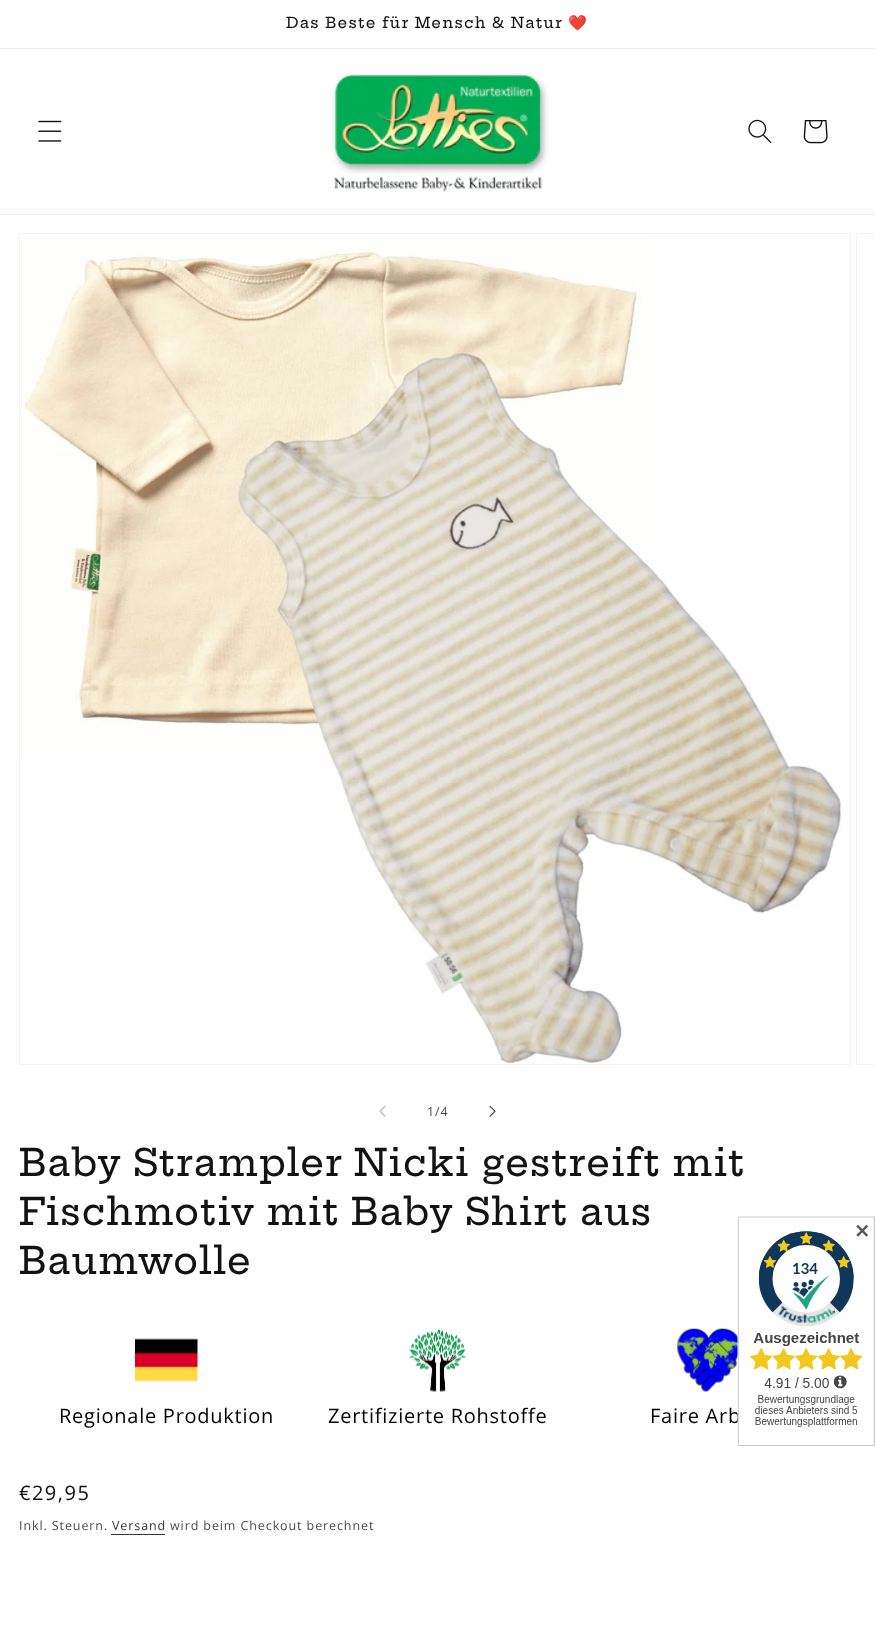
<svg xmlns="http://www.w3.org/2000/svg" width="875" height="1633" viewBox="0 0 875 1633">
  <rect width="100%" height="100%" fill="#fff"/>
  <path d="M0 48h875v1H0z" fill="#ececec"/>
  <path d="M0 214h875v1H0z" fill="#ececec"/>
  <image x="38" y="120" width="24" height="22" href="img/1.png"/>
  <image x="332" y="71" width="217" height="121" href="img/2.png"/>
  <image x="748" y="119" width="24" height="24" href="img/3.png"/>
  <image x="803" y="120" width="25" height="24" href="img/4.png"/>
  <path d="M19.5 233.5h831v831H19.5z" fill="none" stroke="#f3f3f3"/>
  <image x="20" y="234" width="821" height="830" href="img/5.png"/>
  <path d="M856.5 233.5h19v831H856.5z" fill="none" stroke="#f3f3f3"/>
  <image x="379" y="1105" width="7" height="12" href="img/6.png"/>
  <image x="489" y="1105" width="7" height="12" href="img/7.png"/>
  <image x="135" y="1338" width="63" height="44" href="img/8.png"/>
  <image x="409" y="1328" width="57" height="64" href="img/9.png"/>
  <image x="677" y="1328" width="61" height="64" href="img/10.png"/>
  <path d="M111 1534h54v1H111z" fill="#363636"/>
  <text x="286" y="28" word-spacing="-0.25" font-family="Hepta Slab" font-size="15" font-weight="500" letter-spacing="1.25" fill="#121212">Das Beste für Mensch &amp; Natur</text>
  <text x="568" y="28" font-family="Noto Color Emoji" font-size="15" letter-spacing="1.25" fill="#121212">❤️</text>
  <text x="427" y="1116" font-family="Open Sans" font-size="12.5" letter-spacing="0.9" fill="#4d4d4d">1/4</text>
  <g font-family="Hepta Slab" font-size="37.5" font-weight="500" letter-spacing="0.75" fill="#121212">
    <text x="19" y="1176">Baby Strampler Nicki gestreift mit</text>
    <text x="19" y="1225">Fischmotiv mit Baby Shirt aus</text>
    <text x="19" y="1274">Baumwolle</text>
  </g>
  <g font-family="Open Sans" font-size="20" letter-spacing="0.75" fill="#000">
    <text x="59" y="1423">Regionale Produktion</text>
    <text x="328" y="1423">Zertifizierte Rohstoffe</text>
    <text x="650" y="1423">Faire Arb</text>
  </g>
  <text x="19" y="1500" font-family="Open Sans" font-size="20" letter-spacing="1.5" fill="#121212">€29,95</text>
  <text x="19" y="1530" font-family="Open Sans" font-size="12.5" letter-spacing="0.9" fill="#4d4d4d">Inkl. Steuern.</text>
  <text x="112" y="1530" font-family="Open Sans" font-size="12.5" letter-spacing="0.9" fill="#363636">Versand</text>
  <text x="170" y="1530" font-family="Open Sans" font-size="12.5" letter-spacing="0.9" fill="#4d4d4d">wird beim Checkout berechnet</text>
  <image x="737" y="1216" width="138" height="230" href="img/11.png"/>
  <text x="854" y="1238" font-family="DejaVu Sans" font-size="19" font-weight="bold" letter-spacing="0.75" fill="#595959">✕</text>
</svg>
